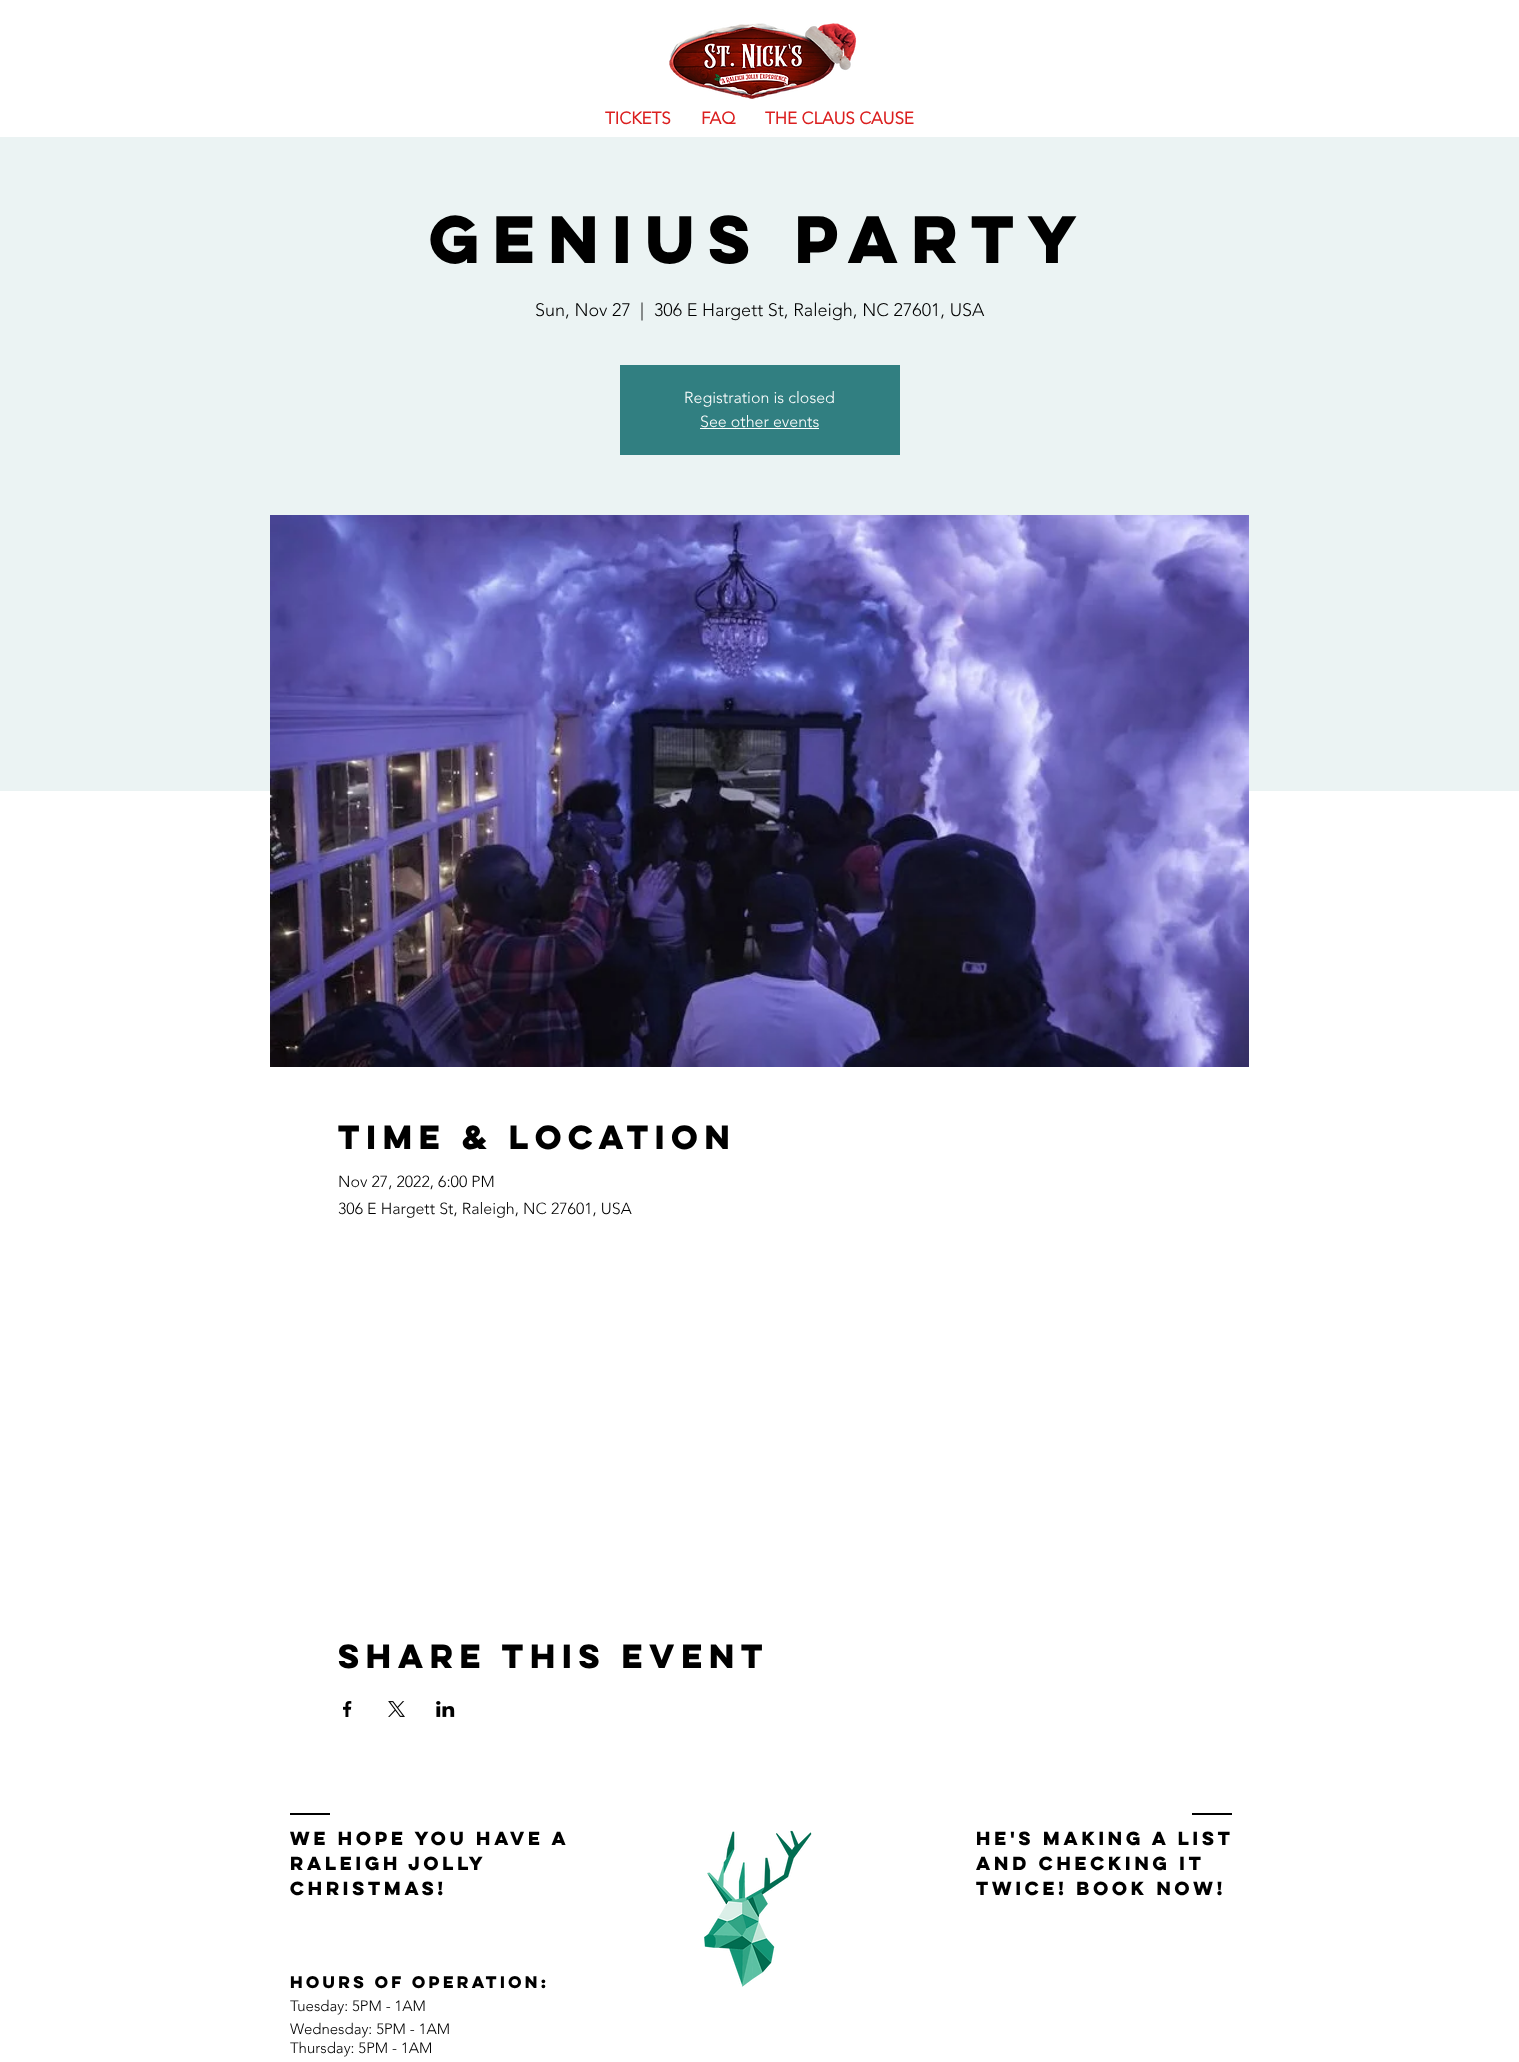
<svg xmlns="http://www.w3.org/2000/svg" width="1519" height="2062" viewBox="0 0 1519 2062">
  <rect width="100%" height="100%" fill="#fff"/>
  <image x="669" y="23" width="188" height="76" href="img/1.png"/>
  <path d="M0 137h1519v654H0z" fill="#ebf3f3"/>
  <path d="M620 365h280v90H620z" fill="#317f81"/>
  <path d="M700 428h119v1H700z" fill="#fff"/>
  <image x="270" y="515" width="979" height="552" href="img/2.png"/>
  <image x="343" y="1701" width="9" height="16" href="img/3.png"/>
  <image x="388" y="1701" width="17" height="16" href="img/4.png"/>
  <image x="436" y="1701" width="19" height="16" href="img/5.png"/>
  <path d="M290 1813h40v2H290z" fill="#000"/>
  <path d="M1192 1813h40v2H1192z" fill="#000"/>
  <image x="704" y="1830" width="108" height="157" href="img/6.png"/>
  <g font-family="'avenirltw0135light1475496'" font-size="17" font-weight="bold" fill="#db1f1f">
    <text x="605" y="124">TICKETS</text>
    <text x="701" y="124">FAQ</text>
    <text x="765" y="124">THE CLAUS CAUSE</text>
  </g>
  <text x="429" y="263" font-family="'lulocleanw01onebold'" font-size="60" font-weight="bold" fill="#000">Genius Party</text>
  <g font-family="'avenirltw0135light1475496'" font-size="18" font-weight="300" fill="#000">
    <text x="535" y="316">Sun, Nov 27</text>
    <text x="640" y="316">|</text>
    <text x="654" y="316">306 E Hargett St, Raleigh, NC 27601, USA</text>
  </g>
  <g font-family="'avenirltw0135light1475496'" font-size="16" font-weight="300" fill="#fff">
    <text x="684" y="403">Registration is closed</text>
    <text x="700" y="427">See other events</text>
  </g>
  <text x="338" y="1149" font-family="'lulocleanw01onebold'" font-size="30" font-weight="bold" fill="#000">Time &amp; Location</text>
  <g font-family="'avenirltw0135light1475496'" font-size="16" font-weight="300" fill="#000">
    <text x="338" y="1187">Nov 27, 2022, 6:00 PM</text>
    <text x="338" y="1214">306 E Hargett St, Raleigh, NC 27601, USA</text>
  </g>
  <text x="338" y="1668" font-family="'lulocleanw01onebold'" font-size="30" font-weight="bold" fill="#000">Share this event</text>
  <g font-family="'lulocleanw01onebold'" font-size="17" font-weight="bold" fill="#000">
    <text x="290" y="1845">we hope you Have a</text>
    <text x="290" y="1870" word-spacing="-1">Raleigh Jolly</text>
    <text x="290" y="1895">Christmas!</text>
    <text x="976" y="1845">He's making a list</text>
    <text x="976" y="1870">and checking it</text>
    <text x="976" y="1895">twice! book now!</text>
  </g>
  <text x="290" y="1988" font-family="'lulocleanw01onebold'" font-size="15" font-weight="bold" fill="#000">Hours of Operation:</text>
  <g font-family="'avenirltw0135light1475496'" font-size="15" font-weight="300" fill="#000">
    <text x="290" y="2011">Tuesday: 5PM - 1AM</text>
    <text x="290" y="2034">Wednesday: 5PM - 1AM</text>
    <text x="290" y="2053">Thursday: 5PM - 1AM</text>
  </g>
</svg>
